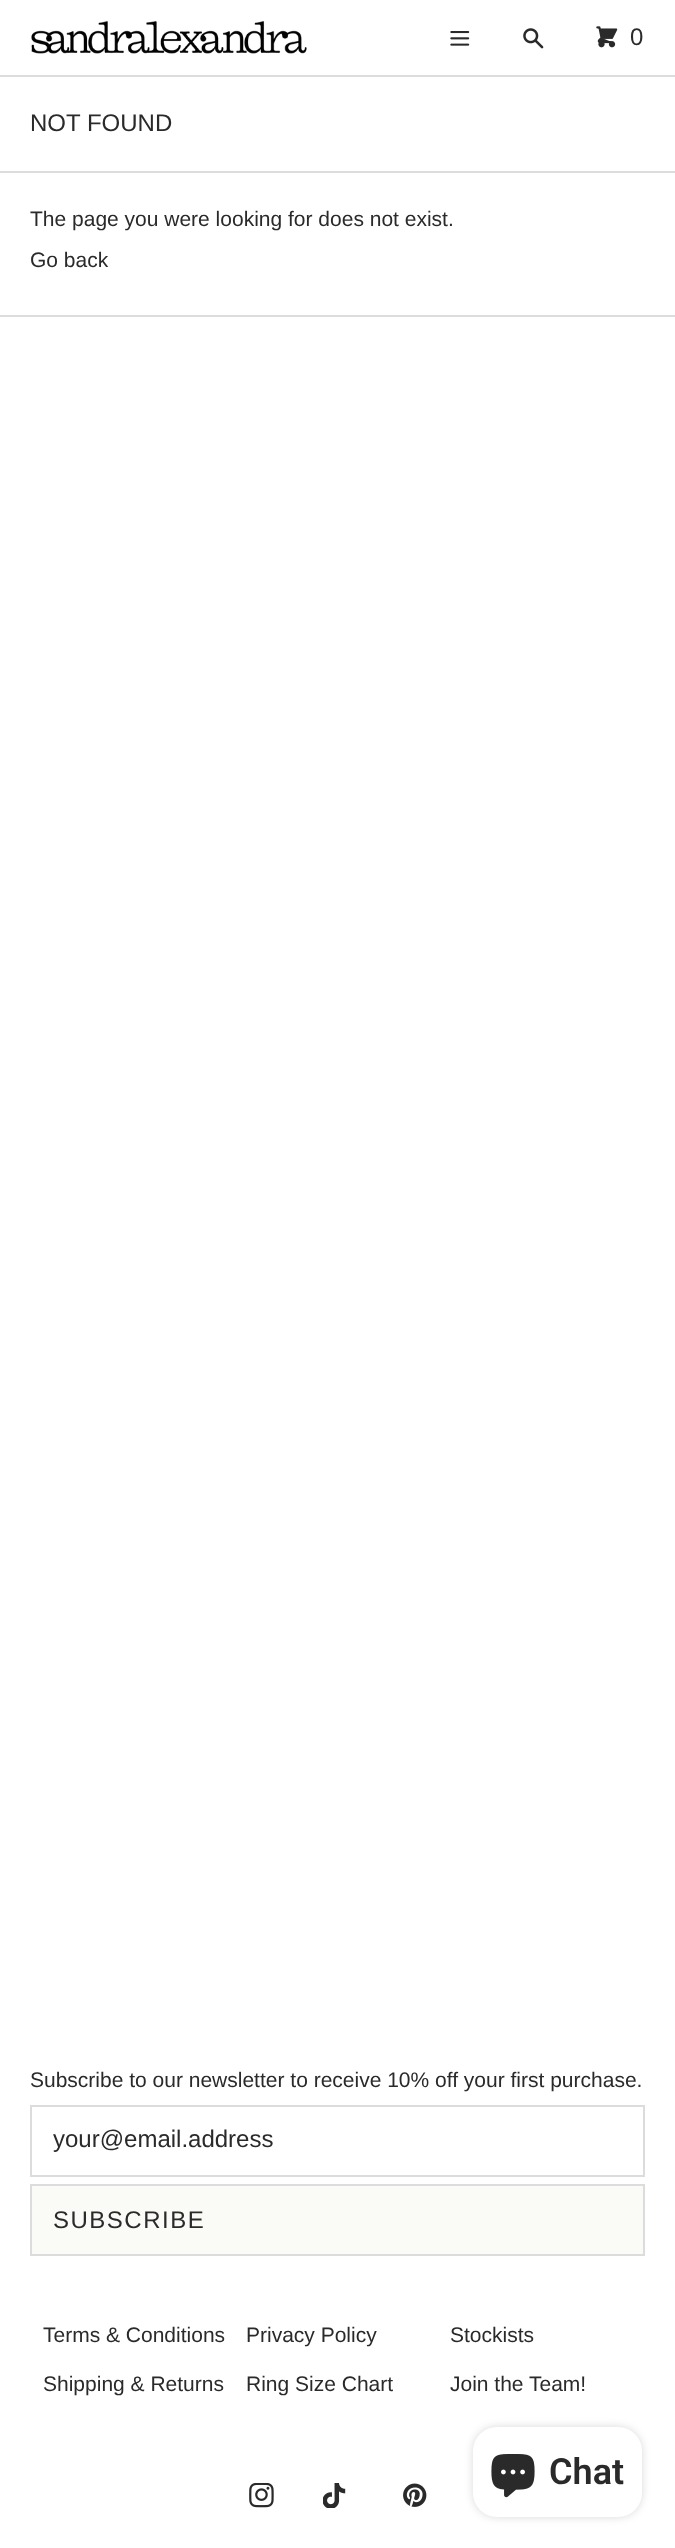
<svg xmlns="http://www.w3.org/2000/svg" width="675" height="2548" viewBox="0 0 675 2548">
  <rect width="100%" height="100%" fill="#fff"/>
  <path d="M0 75h675v2H0z" fill="#dcdcdc"/>
  <image x="31" y="21" width="276" height="33" href="img/1.png"/>
  <image x="450" y="31" width="20" height="15" href="img/2.png"/>
  <image x="523" y="28" width="21" height="21" href="img/3.png"/>
  <image x="596" y="26" width="22" height="22" href="img/4.png"/>
  <path d="M0 315h675v2H0z" fill="#dcdcdc"/>
  <path d="M0 171h675v2H0z" fill="#dcdcdc"/>
  <path d="M31 2106h613v70H31z" fill="none" stroke="#dcdcdc" stroke-width="2"/>
  <path d="M31 2185h613v70H31z" fill="#fafaf7" stroke="#dcdcdc" stroke-width="2"/>
  <image x="249" y="2483" width="25" height="25" href="img/5.png"/>
  <image x="323" y="2483" width="23" height="25" href="img/6.png"/>
  <image x="403" y="2483" width="24" height="24" href="img/7.png"/>
  <rect x="473" y="2427" width="169" height="90" rx="24" fill="#00000026" filter="blur(4px)"/>
  <rect x="473" y="2427" width="169" height="90" rx="24" fill="#fff"/>
  <image x="491" y="2454" width="44" height="44" href="img/8.png"/>
  <text x="630" y="45" font-family="Liberation Sans" font-size="24" letter-spacing="1.5" fill="#2a2a2a">0</text>
  <text x="30" y="131" font-family="Liberation Sans" font-size="24" fill="#2a2a2a">NOT FOUND</text>
  <g font-family="Liberation Sans" font-size="21" fill="#2a2a2a">
    <text x="30" y="226">The page you were looking for does not exist.</text>
    <text x="30" y="267">Go back</text>
    <text x="30" y="2087">Subscribe to our newsletter to receive 10% off your first purchase.</text>
  </g>
  <text x="53" y="2147" font-family="Liberation Sans" font-size="24" fill="#2a2a2a">your@email.address</text>
  <text x="53" y="2228" font-family="Liberation Sans" font-size="24" letter-spacing="1.5" fill="#2a2a2a">SUBSCRIBE</text>
  <g font-family="Liberation Sans" font-size="21" fill="#2a2a2a">
    <text x="43" y="2342">Terms &amp; Conditions</text>
    <text x="246" y="2342">Privacy Policy</text>
    <text x="450" y="2342">Stockists</text>
    <text x="43" y="2391">Shipping &amp; Returns</text>
    <text x="246" y="2391">Ring Size Chart</text>
    <text x="450" y="2391">Join the Team!</text>
  </g>
  <text x="549" y="2484" font-family="Roboto" font-size="36" font-weight="600" fill="#2a2a2a">Chat</text>
</svg>
